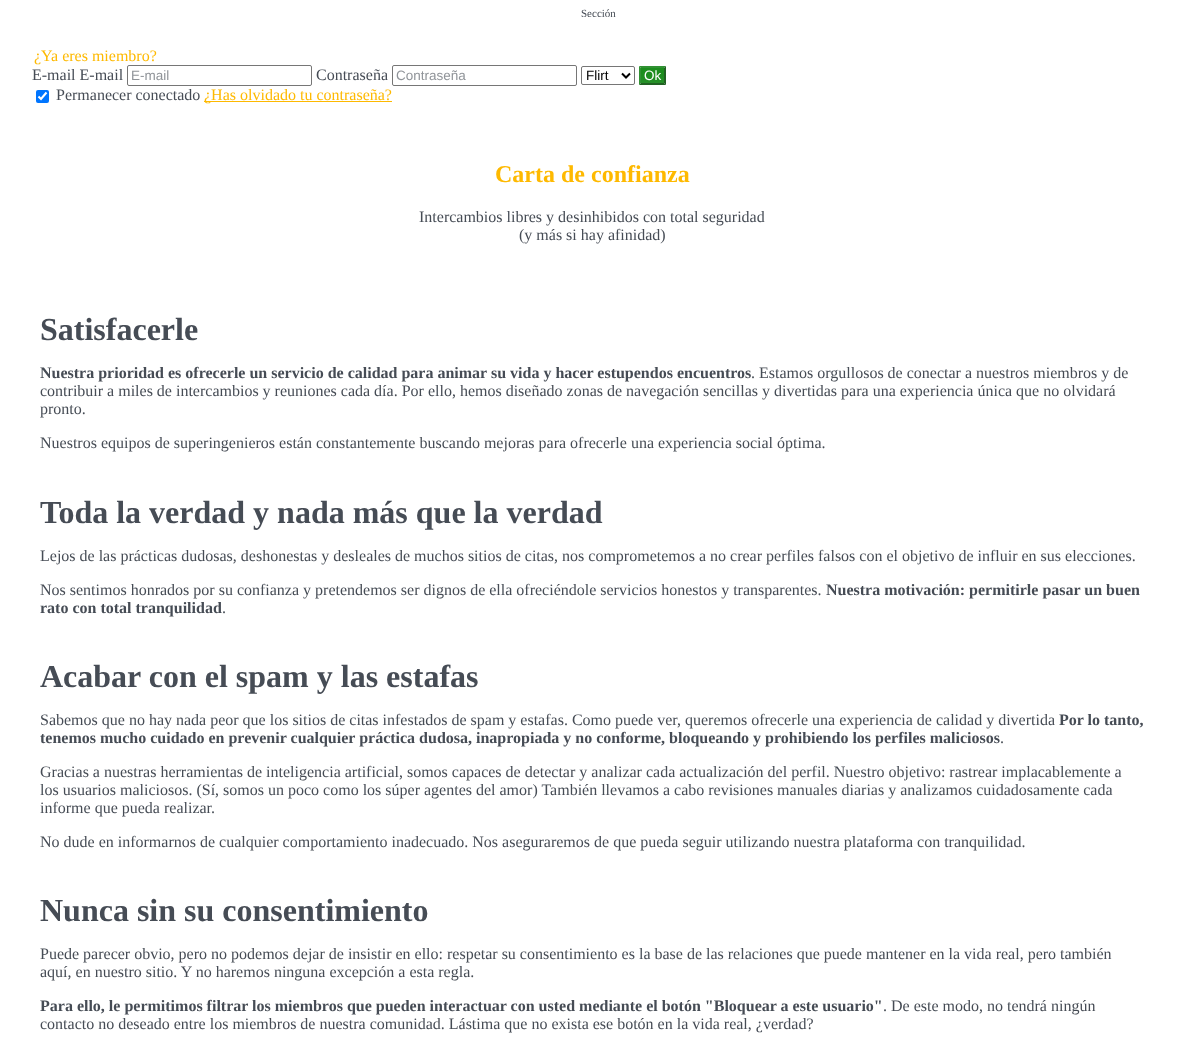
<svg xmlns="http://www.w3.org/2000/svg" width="1184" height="1037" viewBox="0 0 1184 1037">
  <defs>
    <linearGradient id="g1" gradientUnits="userSpaceOnUse" x1="653" y1="68" x2="653" y2="83"><stop offset="0.4" stop-color="#1c8d1e"/><stop offset="1" stop-color="#268f28"/></linearGradient>
  </defs>
  <rect width="100%" height="100%" fill="#fff"/>
  <rect x="127.5" y="65.5" width="184" height="20" rx="1.5" fill="none" stroke="#767676"/>
  <rect x="392.5" y="65.5" width="184" height="20" rx="1.5" fill="none" stroke="#767676"/>
  <rect x="581.5" y="66.5" width="53" height="18" rx="1.5" fill="none" stroke="#767676"/>
  <path d="M622 73.5L626 77.5L630 73.5" fill="none" stroke="#000" stroke-width="2"/>
  <path d="M641 68h23v15H641z" fill="url(#g1)"/>
  <path d="M639 66H666L664 68H641Z" fill="#319133"/>
  <path d="M666 66V85L664 83V68Z" fill="#216122"/>
  <path d="M666 85H639L641 83H664Z" fill="#216122"/>
  <path d="M639 85V66L641 68V83Z" fill="#319133"/>
  <rect x="36" y="90" width="13" height="13" rx="2" fill="#0075ff"/>
  <path d="M38.5 96.5L41 99L46.5 92.5" fill="none" stroke="#fff" stroke-width="2.1"/>
  <path d="M204 101h188v1H204z" fill="#feb900"/>
  <text x="32" y="80" font-family="Liberation Serif" font-size="16" fill="#464c55">E-mail E-mail</text>
  <text x="131" y="80" font-family="Liberation Sans" font-size="13.5" fill="#909499">E-mail</text>
  <text x="316" y="80" font-family="Liberation Serif" font-size="16" fill="#464c55">Contraseña</text>
  <text x="396" y="80" font-family="Liberation Sans" font-size="13.5" fill="#909499">Contraseña</text>
  <text x="581" y="17" font-family="Liberation Serif" font-size="11" fill="#464c55">Sección</text>
  <text x="586" y="80" font-family="Liberation Sans" font-size="13.5" fill="#000">Flirt</text>
  <text x="644" y="80" font-family="Liberation Sans" font-size="13.5" fill="#fff">Ok</text>
  <text x="34" y="61" font-family="Liberation Serif" font-size="16" fill="#feb900">¿Ya eres miembro?</text>
  <text x="56" y="100" font-family="Liberation Serif" font-size="16" fill="#464c55">Permanecer conectado</text>
  <text x="204" y="100" font-family="Liberation Serif" font-size="16" fill="#feb900">¿Has olvidado tu contraseña?</text>
  <text x="495" y="182" font-family="Liberation Serif" font-size="24" font-weight="bold" fill="#feb900">Carta de confianza</text>
  <g font-family="Liberation Serif" font-size="16" fill="#464c55">
    <text x="419" y="222">Intercambios libres y desinhibidos con total seguridad</text>
    <text x="519" y="240">(y más si hay afinidad)</text>
  </g>
  <text x="40" y="340" font-family="Liberation Serif" font-size="32" font-weight="bold" fill="#464c55">Satisfacerle</text>
  <text x="40" y="378" font-family="Liberation Serif" font-size="16" font-weight="bold" fill="#464c55">Nuestra prioridad es ofrecerle un servicio de calidad para animar su vida y hacer estupendos encuentros</text>
  <g font-family="Liberation Serif" font-size="16" fill="#464c55">
    <text x="751" y="378">. Estamos orgullosos de conectar a nuestros miembros y de</text>
    <text x="40" y="396">contribuir a miles de intercambios y reuniones cada día. Por ello, hemos diseñado zonas de navegación sencillas y divertidas para una experiencia única que no olvidará</text>
    <text x="40" y="414">pronto.</text>
    <text x="40" y="448">Nuestros equipos de superingenieros están constantemente buscando mejoras para ofrecerle una experiencia social óptima.</text>
  </g>
  <text x="40" y="523" font-family="Liberation Serif" font-size="32" font-weight="bold" fill="#464c55">Toda la verdad y nada más que la verdad</text>
  <g font-family="Liberation Serif" font-size="16" fill="#464c55">
    <text x="40" y="561">Lejos de las prácticas dudosas, deshonestas y desleales de muchos sitios de citas, nos comprometemos a no crear perfiles falsos con el objetivo de influir en sus elecciones.</text>
    <text x="40" y="595">Nos sentimos honrados por su confianza y pretendemos ser dignos de ella ofreciéndole servicios honestos y transparentes.</text>
  </g>
  <g font-family="Liberation Serif" font-size="16" font-weight="bold" fill="#464c55">
    <text x="826" y="595">Nuestra motivación: permitirle pasar un buen</text>
    <text x="40" y="613">rato con total tranquilidad</text>
  </g>
  <text x="222" y="613" font-family="Liberation Serif" font-size="16" fill="#464c55">.</text>
  <text x="40" y="687" font-family="Liberation Serif" font-size="32" font-weight="bold" fill="#464c55">Acabar con el spam y las estafas</text>
  <text x="40" y="725" font-family="Liberation Serif" font-size="16" fill="#464c55">Sabemos que no hay nada peor que los sitios de citas infestados de spam y estafas. Como puede ver, queremos ofrecerle una experiencia de calidad y divertida</text>
  <g font-family="Liberation Serif" font-size="16" font-weight="bold" fill="#464c55">
    <text x="1059" y="725">Por lo tanto,</text>
    <text x="40" y="743">tenemos mucho cuidado en prevenir cualquier práctica dudosa, inapropiada y no conforme, bloqueando y prohibiendo los perfiles maliciosos</text>
  </g>
  <g font-family="Liberation Serif" font-size="16" fill="#464c55">
    <text x="1000" y="743">.</text>
    <text x="40" y="777">Gracias a nuestras herramientas de inteligencia artificial, somos capaces de detectar y analizar cada actualización del perfil. Nuestro objetivo: rastrear implacablemente a</text>
    <text x="40" y="795">los usuarios maliciosos. (Sí, somos un poco como los súper agentes del amor) También llevamos a cabo revisiones manuales diarias y analizamos cuidadosamente cada</text>
    <text x="40" y="813">informe que pueda realizar.</text>
    <text x="40" y="847">No dude en informarnos de cualquier comportamiento inadecuado. Nos aseguraremos de que pueda seguir utilizando nuestra plataforma con tranquilidad.</text>
  </g>
  <text x="40" y="921" font-family="Liberation Serif" font-size="32" font-weight="bold" fill="#464c55">Nunca sin su consentimiento</text>
  <g font-family="Liberation Serif" font-size="16" fill="#464c55">
    <text x="40" y="959">Puede parecer obvio, pero no podemos dejar de insistir en ello: respetar su consentimiento es la base de las relaciones que puede mantener en la vida real, pero también</text>
    <text x="40" y="977">aquí, en nuestro sitio. Y no haremos ninguna excepción a esta regla.</text>
  </g>
  <text x="40" y="1011" font-family="Liberation Serif" font-size="16" font-weight="bold" fill="#464c55">Para ello, le permitimos filtrar los miembros que pueden interactuar con usted mediante el botón "Bloquear a este usuario"</text>
  <g font-family="Liberation Serif" font-size="16" fill="#464c55">
    <text x="883" y="1011">. De este modo, no tendrá ningún</text>
    <text x="40" y="1029">contacto no deseado entre los miembros de nuestra comunidad. Lástima que no exista ese botón en la vida real, ¿verdad?</text>
  </g>
</svg>
